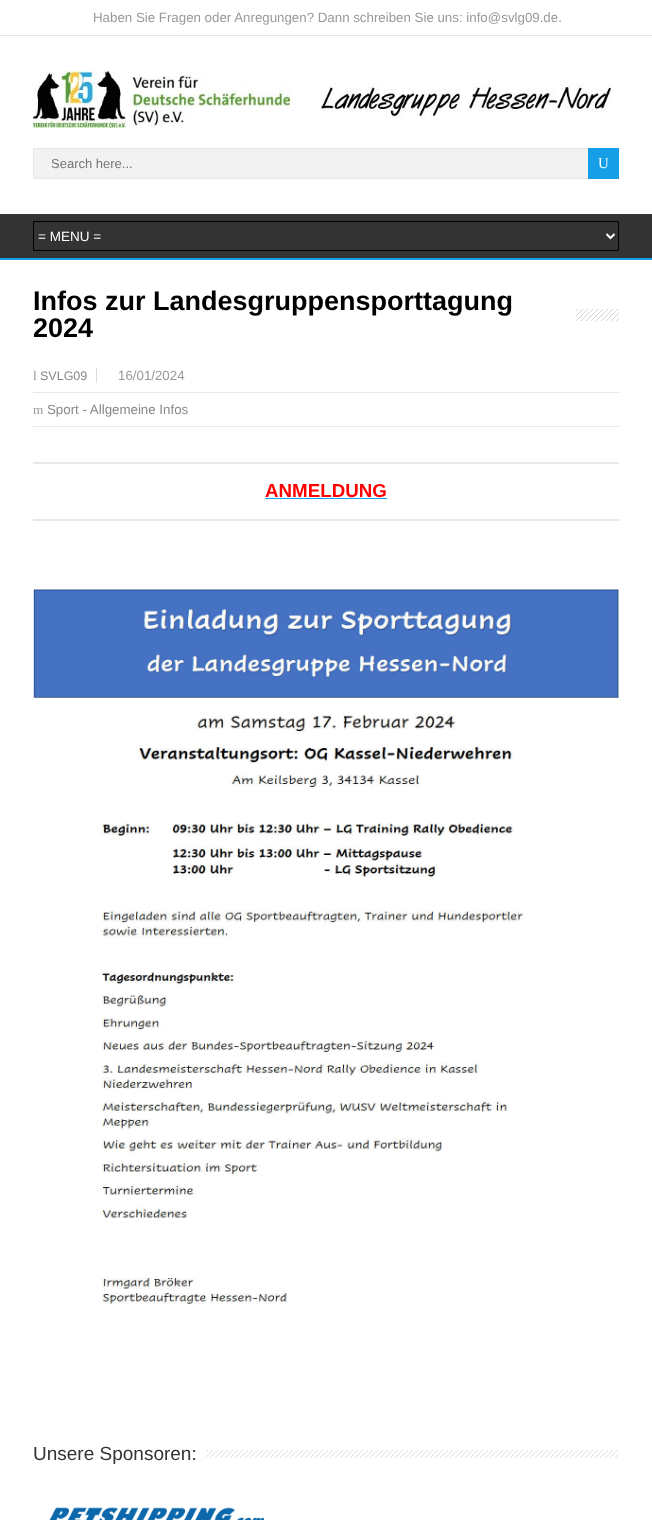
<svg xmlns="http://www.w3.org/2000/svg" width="652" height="1520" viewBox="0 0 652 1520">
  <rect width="100%" height="100%" fill="#fff"/>
  <path d="M0 35h652v1H0z" fill="#e6e6e6"/>
  <image x="33" y="71" width="580" height="57" href="img/1.png"/>
  <path d="M34 149h554v29H34z" fill="#f2f2f2"/>
  <path d="M33.5 148.5h582v30H33.5z" fill="none" stroke="#e6e6e6"/>
  <path d="M588 148h31v31H588z" fill="#169fe6"/>
  <path d="M0 214h652v44H0z" fill="#333"/>
  <path d="M0 258h652v2H0z" fill="#169fe6"/>
  <path d="M33.5 221.5h585v29H33.5z" fill="none" stroke="#000"/>
  <path d="M606.5 234L610.5 238L614.5 234" fill="none" stroke="#fff" stroke-width="2"/>
  <image x="576" y="309" width="43" height="12" href="img/2.png"/>
  <path d="M96 368h1v15H96z" fill="#dbdbdb"/>
  <path d="M33 392h586v1H33z" fill="#e8e8e8"/>
  <path d="M33 426h586v1H33z" fill="#e8e8e8"/>
  <path d="M33 462h586v2H33z" fill="#e8e8e8"/>
  <path d="M265 498h122v1H265z" fill="#169fe6"/>
  <path d="M33 519h586v2H33z" fill="#e8e8e8"/>
  <image x="33" y="589" width="586" height="716" href="img/3.png"/>
  <image x="206" y="1450" width="413" height="8" href="img/4.png"/>
  <image x="49" y="1507" width="216" height="13" href="img/5.png"/>
  <text x="93" y="22" font-family="Liberation Sans" font-size="13.3" fill="#999">Haben Sie Fragen oder Anregungen? Dann schreiben Sie uns: info@svlg09.de.</text>
  <text x="51" y="168" font-family="Liberation Sans" font-size="13" fill="#757575">Search here...</text>
  <text x="598" y="168" font-family="Liberation Serif" font-size="15" fill="#fff">U</text>
  <text x="38" y="241" font-family="Liberation Sans" font-size="13.5" fill="#fff">= MENU =</text>
  <g font-family="Liberation Sans" font-size="27" font-weight="bold" fill="#000">
    <text x="33" y="310">Infos zur Landesgruppensporttagung</text>
    <text x="33" y="337">2024</text>
  </g>
  <text x="33" y="380" font-family="Liberation Serif" font-size="13.3" fill="#999">l</text>
  <text x="40" y="380" font-family="Liberation Sans" font-size="12.5" fill="#888">SVLG09</text>
  <text x="118" y="380" font-family="Liberation Sans" font-size="13.3" fill="#999">16/01/2024</text>
  <text x="33" y="414" font-family="Liberation Serif" font-size="13.3" fill="#999">m</text>
  <text x="47" y="414" font-family="Liberation Sans" font-size="13.3" fill="#888">Sport - Allgemeine Infos</text>
  <text x="265" y="497" font-family="Liberation Sans" font-size="18.75" font-weight="bold" fill="#f00">ANMELDUNG</text>
  <text x="33" y="1460" font-family="Liberation Sans" font-size="19" fill="#333">Unsere Sponsoren:</text>
</svg>
